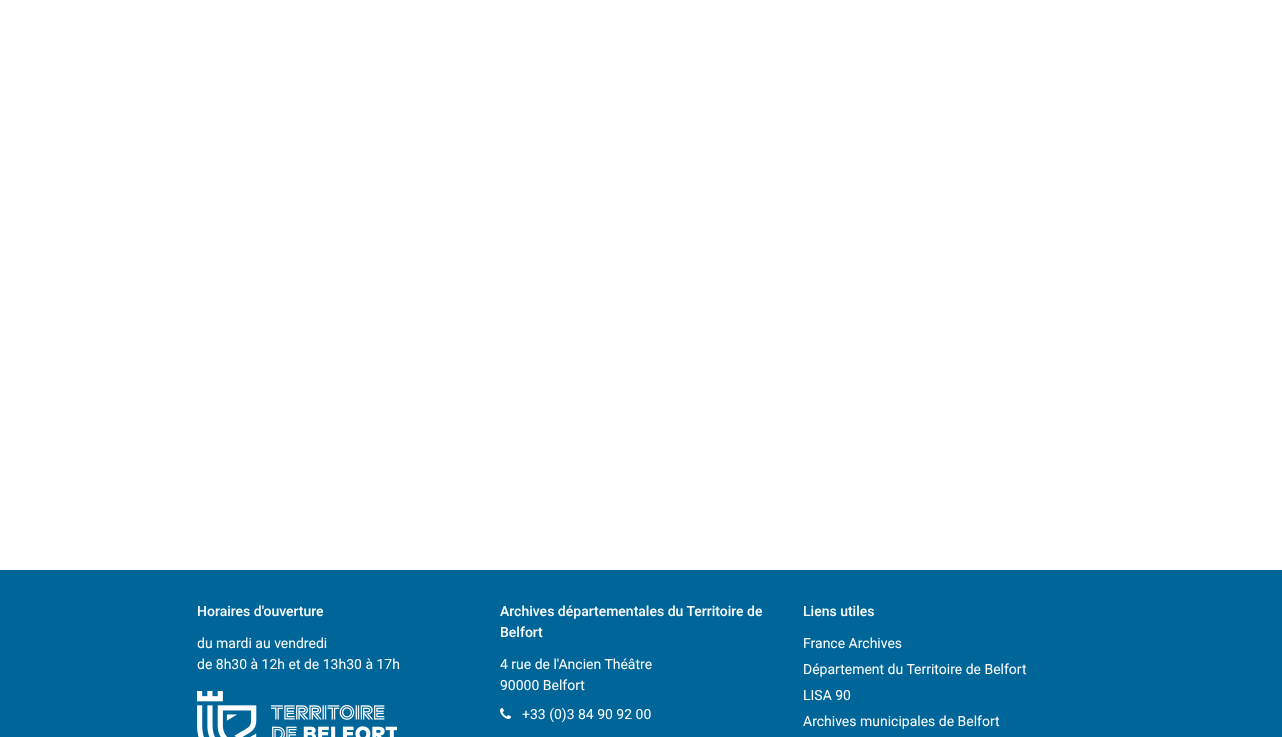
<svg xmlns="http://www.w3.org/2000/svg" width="1282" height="737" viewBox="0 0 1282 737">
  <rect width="100%" height="100%" fill="#fff"/>
  <path d="M0 570h1282v167H0z" fill="#069"/>
  <image x="197" y="691" width="200" height="46" href="img/1.png"/>
  <image x="500" y="708" width="11" height="11" href="img/2.png"/>
  <text x="197" y="616" font-family="Roboto" font-size="14" font-weight="500" fill="#fff">Horaires d'ouverture</text>
  <g font-family="Roboto" font-size="14" fill="#fff">
    <text x="197" y="648">du mardi au vendredi</text>
    <text x="197" y="669">de 8h30 à 12h et de 13h30 à 17h</text>
  </g>
  <g font-family="Roboto" font-size="14" font-weight="500" fill="#fff">
    <text x="500" y="616">Archives départementales du Territoire de</text>
    <text x="500" y="637">Belfort</text>
  </g>
  <g font-family="Roboto" font-size="14" fill="#fff">
    <text x="500" y="669">4 rue de l'Ancien Théâtre</text>
    <text x="500" y="690">90000 Belfort</text>
    <text x="522" y="719">+33 (0)3 84 90 92 00</text>
  </g>
  <text x="803" y="616" font-family="Roboto" font-size="14" font-weight="500" fill="#fff">Liens utiles</text>
  <g font-family="Roboto" font-size="14" fill="#fff">
    <text x="803" y="648">France Archives</text>
    <text x="803" y="674">Département du Territoire de Belfort</text>
    <text x="803" y="700">LISA 90</text>
    <text x="803" y="726">Archives municipales de Belfort</text>
  </g>
</svg>
